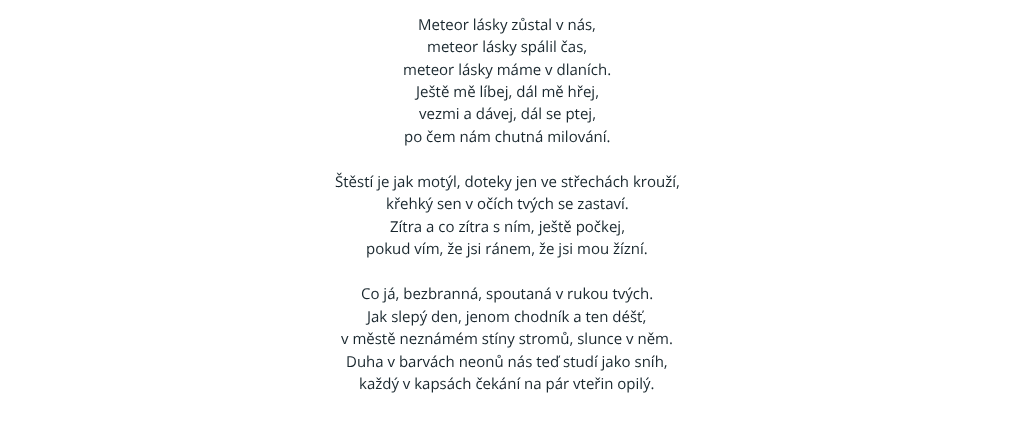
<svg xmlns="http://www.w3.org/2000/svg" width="1014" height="422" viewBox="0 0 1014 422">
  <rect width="100%" height="100%" fill="#fff"/>
  <g font-family="Open Sans" font-size="15" fill="#19272e">
    <text x="418" y="30">Meteor lásky zůstal v nás,</text>
    <text x="427" y="52">meteor lásky spálil čas,</text>
    <text x="403" y="75">meteor lásky máme v dlaních.</text>
    <text x="416" y="97">Ještě mě líbej, dál mě hřej,</text>
    <text x="419" y="119">vezmi a dávej, dál se ptej,</text>
    <text x="404" y="142">po čem nám chutná milování.</text>
    <text x="335" y="187">Štěstí je jak motýl, doteky jen ve střechách krouží,</text>
    <text x="386" y="209">křehký sen v očích tvých se zastaví.</text>
    <text x="390" y="232">Zítra a co zítra s ním, ještě počkej,</text>
    <text x="366" y="254">pokud vím, že jsi ránem, že jsi mou žízní.</text>
    <text x="361" y="299">Co já, bezbranná, spoutaná v rukou tvých.</text>
    <text x="367" y="322">Jak slepý den, jenom chodník a ten déšť,</text>
    <text x="341" y="344">v městě neznámém stíny stromů, slunce v něm.</text>
    <text x="346" y="367">Duha v barvách neonů nás teď studí jako sníh,</text>
    <text x="359" y="389">každý v kapsách čekání na pár vteřin opilý.</text>
  </g>
</svg>
